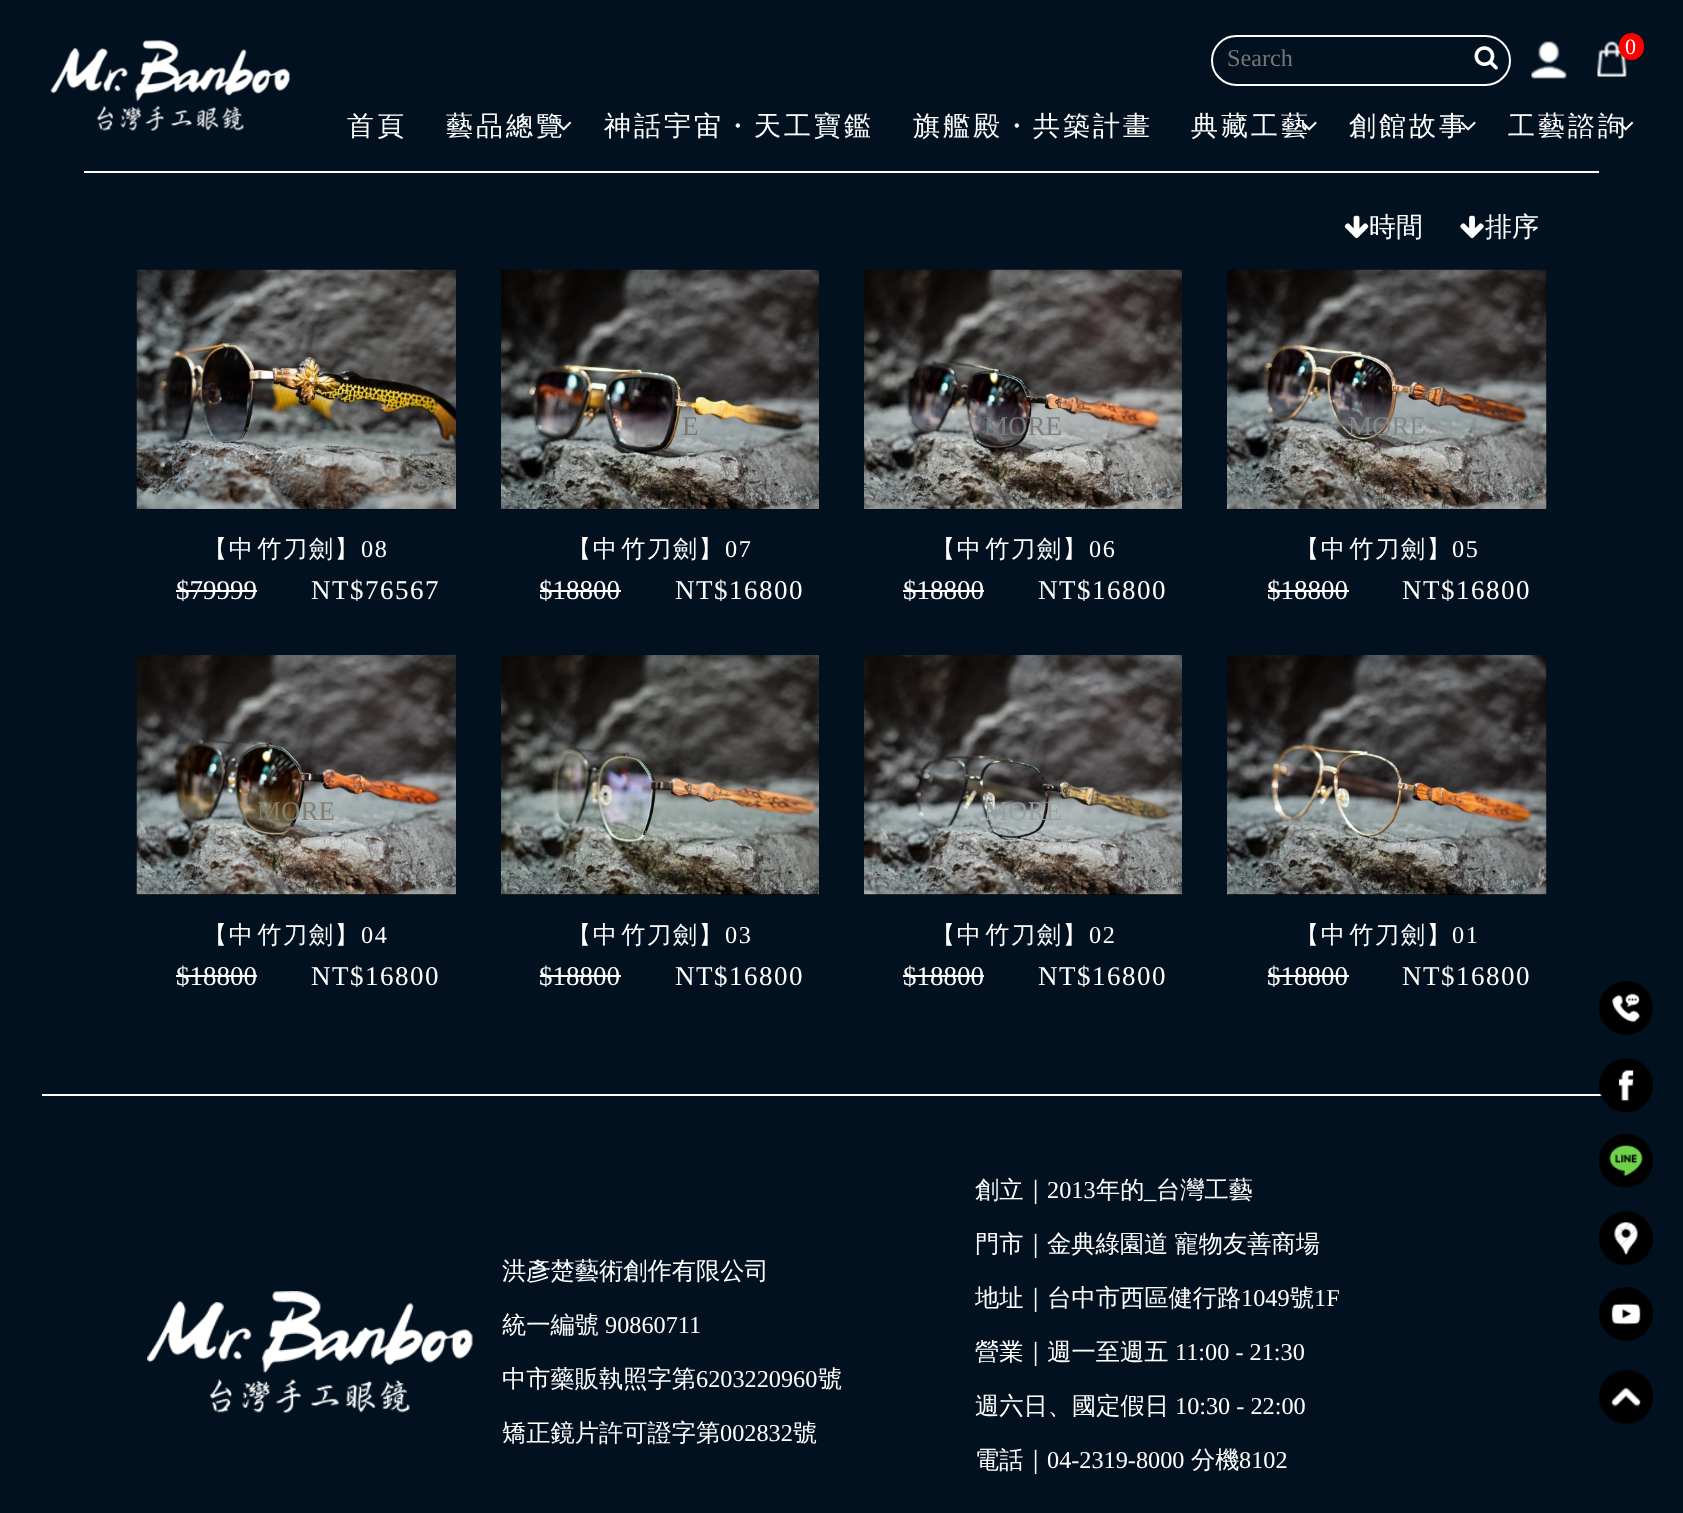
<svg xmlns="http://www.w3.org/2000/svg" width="1683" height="1513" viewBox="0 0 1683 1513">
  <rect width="100%" height="100%" fill="#01111f"/>
  <image x="50" y="40" width="240" height="91" href="img/1.png"/>
  <rect x="1212" y="36" width="298" height="49" rx="24.5" fill="none" stroke="#fff" stroke-width="2"/>
  <image x="1474" y="46" width="24" height="24" href="img/2.png"/>
  <image x="1531" y="41" width="36" height="38" href="img/3.png"/>
  <image x="1597" y="41" width="30" height="36" href="img/4.png"/>
  <rect x="1619" y="33" width="25" height="27" rx="12.5" fill="#f00"/>
  <image x="556" y="121" width="16" height="10" href="img/5.png"/>
  <image x="1301" y="121" width="16" height="10" href="img/6.png"/>
  <image x="1460" y="121" width="16" height="10" href="img/6.png"/>
  <image x="1618" y="121" width="16" height="10" href="img/5.png"/>
  <path d="M84 171h1515v2H84z" fill="#fff"/>
  <image x="1344" y="215" width="25" height="24" href="img/7.png"/>
  <image x="1460" y="215" width="24" height="24" href="img/8.png"/>
  <image x="136" y="269" width="320" height="241" href="img/9.png"/>
  <path d="M176 590h81v2H176z" fill="#fff"/>
  <image x="501" y="269" width="318" height="241" href="img/10.png"/>
  <path d="M540 590h81v2H540z" fill="#fff"/>
  <image x="864" y="269" width="318" height="241" href="img/11.png"/>
  <path d="M903 590h81v2H903z" fill="#fff"/>
  <image x="1227" y="269" width="320" height="241" href="img/12.png"/>
  <path d="M1268 590h81v2H1268z" fill="#fff"/>
  <image x="136" y="655" width="320" height="240" href="img/13.png"/>
  <path d="M176 975h81v2H176z" fill="#fff"/>
  <image x="501" y="655" width="318" height="240" href="img/14.png"/>
  <path d="M540 975h81v2H540z" fill="#fff"/>
  <image x="864" y="655" width="318" height="240" href="img/15.png"/>
  <path d="M903 975h81v2H903z" fill="#fff"/>
  <image x="1227" y="655" width="320" height="240" href="img/16.png"/>
  <path d="M1268 975h81v2H1268z" fill="#fff"/>
  <path d="M42 1094h1560v2H42z" fill="#fff"/>
  <image x="147" y="1291" width="326" height="122" href="img/17.png"/>
  <image x="1599" y="981" width="54" height="54" href="img/18.png"/>
  <image x="1599" y="1058" width="54" height="55" href="img/19.png"/>
  <image x="1599" y="1134" width="54" height="54" href="img/20.png"/>
  <image x="1599" y="1210" width="54" height="56" href="img/21.png"/>
  <image x="1599" y="1287" width="54" height="54" href="img/22.png"/>
  <image x="1599" y="1369" width="54" height="55" href="img/23.png"/>
  <text x="1227" y="66" font-family="Liberation Serif" font-size="24.25" fill="#787577">Search</text>
  <text x="1625" y="54" font-family="Liberation Serif" font-size="22" fill="#fff">0</text>
  <g font-family="WenQuanYi Zen Hei" font-size="27" font-weight="500" letter-spacing="3" fill="#fff">
    <text x="347" y="135">首頁</text>
    <text x="446" y="135">藝品總覽</text>
    <text x="604" y="135">神話宇宙・天工寶鑑</text>
    <text x="913" y="135">旗艦殿・共築計畫</text>
    <text x="1191" y="135">典藏工藝</text>
    <text x="1349" y="135">創館故事</text>
    <text x="1508" y="135">工藝諮詢</text>
  </g>
  <g font-family="WenQuanYi Zen Hei" font-size="27" font-weight="500" fill="#fff">
    <text x="1369" y="236">時間</text>
    <text x="1485" y="236">排序</text>
  </g>
  <text x="203" y="557" word-spacing="-6" font-family="WenQuanYi Zen Hei" font-size="24.25" font-weight="500" letter-spacing="1.5" fill="#fff">【中 竹刀劍】</text>
  <text x="361" y="557" font-family="Liberation Serif" font-size="24.25" letter-spacing="1.5" fill="#fff">08</text>
  <text x="176" y="599" font-family="Liberation Serif" font-size="27" fill="#fff">$79999</text>
  <text x="311" y="599" font-family="Liberation Serif" font-size="27" letter-spacing="1.5" fill="#fff">NT$76567</text>
  <text x="682" y="435" font-family="Liberation Serif" font-size="27" fill="#787577">E</text>
  <text x="567" y="557" word-spacing="-6" font-family="WenQuanYi Zen Hei" font-size="24.25" font-weight="500" letter-spacing="1.5" fill="#fff">【中 竹刀劍】</text>
  <text x="725" y="557" font-family="Liberation Serif" font-size="24.25" letter-spacing="1.5" fill="#fff">07</text>
  <text x="539" y="599" font-family="Liberation Serif" font-size="27" fill="#fff">$18800</text>
  <text x="675" y="599" font-family="Liberation Serif" font-size="27" letter-spacing="1.5" fill="#fff">NT$16800</text>
  <text x="984" y="435" font-family="Liberation Serif" font-size="27" fill="#7c7d80">MORE</text>
  <text x="931" y="557" word-spacing="-6" font-family="WenQuanYi Zen Hei" font-size="24.25" font-weight="500" letter-spacing="1.5" fill="#fff">【中 竹刀劍】</text>
  <text x="1089" y="557" font-family="Liberation Serif" font-size="24.25" letter-spacing="1.5" fill="#fff">06</text>
  <text x="903" y="599" font-family="Liberation Serif" font-size="27" fill="#fff">$18800</text>
  <text x="1038" y="599" font-family="Liberation Serif" font-size="27" letter-spacing="1.5" fill="#fff">NT$16800</text>
  <text x="1348" y="435" font-family="Liberation Serif" font-size="27" fill="#858989">MORE</text>
  <text x="1295" y="557" word-spacing="-6" font-family="WenQuanYi Zen Hei" font-size="24.25" font-weight="500" letter-spacing="1.5" fill="#fff">【中 竹刀劍】</text>
  <text x="1452" y="557" font-family="Liberation Serif" font-size="24.25" letter-spacing="1.5" fill="#fff">05</text>
  <text x="1267" y="599" font-family="Liberation Serif" font-size="27" fill="#fff">$18800</text>
  <text x="1402" y="599" font-family="Liberation Serif" font-size="27" letter-spacing="1.5" fill="#fff">NT$16800</text>
  <text x="257" y="820" font-family="Liberation Serif" font-size="27" fill="#817f72">MORE</text>
  <text x="203" y="943" word-spacing="-6" font-family="WenQuanYi Zen Hei" font-size="24.25" font-weight="500" letter-spacing="1.5" fill="#fff">【中 竹刀劍】</text>
  <text x="361" y="943" font-family="Liberation Serif" font-size="24.25" letter-spacing="1.5" fill="#fff">04</text>
  <text x="176" y="985" font-family="Liberation Serif" font-size="27" fill="#fff">$18800</text>
  <text x="311" y="985" font-family="Liberation Serif" font-size="27" letter-spacing="1.5" fill="#fff">NT$16800</text>
  <text x="567" y="943" word-spacing="-6" font-family="WenQuanYi Zen Hei" font-size="24.25" font-weight="500" letter-spacing="1.5" fill="#fff">【中 竹刀劍】</text>
  <text x="725" y="943" font-family="Liberation Serif" font-size="24.25" letter-spacing="1.5" fill="#fff">03</text>
  <text x="539" y="985" font-family="Liberation Serif" font-size="27" fill="#fff">$18800</text>
  <text x="675" y="985" font-family="Liberation Serif" font-size="27" letter-spacing="1.5" fill="#fff">NT$16800</text>
  <text x="984" y="820" font-family="Liberation Serif" font-size="27" fill="#989e9f">MORE</text>
  <text x="931" y="943" word-spacing="-6" font-family="WenQuanYi Zen Hei" font-size="24.25" font-weight="500" letter-spacing="1.5" fill="#fff">【中 竹刀劍】</text>
  <text x="1089" y="943" font-family="Liberation Serif" font-size="24.25" letter-spacing="1.5" fill="#fff">02</text>
  <text x="903" y="985" font-family="Liberation Serif" font-size="27" fill="#fff">$18800</text>
  <text x="1038" y="985" font-family="Liberation Serif" font-size="27" letter-spacing="1.5" fill="#fff">NT$16800</text>
  <text x="1295" y="943" word-spacing="-6" font-family="WenQuanYi Zen Hei" font-size="24.25" font-weight="500" letter-spacing="1.5" fill="#fff">【中 竹刀劍】</text>
  <text x="1452" y="943" font-family="Liberation Serif" font-size="24.25" letter-spacing="1.5" fill="#fff">01</text>
  <text x="1267" y="985" font-family="Liberation Serif" font-size="27" fill="#fff">$18800</text>
  <text x="1402" y="985" font-family="Liberation Serif" font-size="27" letter-spacing="1.5" fill="#fff">NT$16800</text>
  <g font-family="WenQuanYi Zen Hei" font-size="24.25" font-weight="500" fill="#fff">
    <text x="502" y="1279">洪彥楚藝術創作有限公司</text>
    <text x="502" y="1333">統一編號</text>
  </g>
  <text x="605" y="1333" font-family="Liberation Serif" font-size="24.25" fill="#fff">90860711</text>
  <text x="502" y="1387" font-family="WenQuanYi Zen Hei" font-size="24.25" font-weight="500" fill="#fff">中市藥販執照字第</text>
  <text x="696" y="1387" font-family="Liberation Serif" font-size="24.25" fill="#fff">6203220960</text>
  <g font-family="WenQuanYi Zen Hei" font-size="24.25" font-weight="500" fill="#fff">
    <text x="818" y="1387">號</text>
    <text x="502" y="1441">矯正鏡片許可證字第</text>
  </g>
  <text x="720" y="1441" font-family="Liberation Serif" font-size="24.25" fill="#fff">002832</text>
  <g font-family="WenQuanYi Zen Hei" font-size="24.25" font-weight="500" fill="#fff">
    <text x="793" y="1441">號</text>
    <text x="975" y="1198">創立｜</text>
  </g>
  <text x="1047" y="1198" font-family="Liberation Serif" font-size="24.25" fill="#fff">2013</text>
  <g font-family="WenQuanYi Zen Hei" font-size="24.25" font-weight="500" fill="#fff">
    <text x="1096" y="1198">年的</text>
    <text x="1156" y="1198">台灣工藝</text>
  </g>
  <text x="1144" y="1198" font-family="Liberation Serif" font-size="24.25" fill="#fff">_</text>
  <g font-family="WenQuanYi Zen Hei" font-size="24.25" font-weight="500" fill="#fff">
    <text x="975" y="1252">門市｜</text>
    <text x="1047" y="1252" word-spacing="-1">金典綠園道 寵物友善商場</text>
    <text x="975" y="1306">地址｜台中市西區健行路</text>
  </g>
  <text x="1241" y="1306" font-family="Liberation Serif" font-size="24.25" fill="#fff">1049</text>
  <text x="1290" y="1306" font-family="WenQuanYi Zen Hei" font-size="24.25" font-weight="500" fill="#fff">號</text>
  <text x="1314" y="1306" font-family="Liberation Serif" font-size="24.25" fill="#fff">1F</text>
  <text x="975" y="1360" font-family="WenQuanYi Zen Hei" font-size="24.25" font-weight="500" fill="#fff">營業｜週一至週五</text>
  <text x="1175" y="1360" font-family="Liberation Serif" font-size="24.25" fill="#fff">11:00 - 21:30</text>
  <text x="975" y="1414" font-family="WenQuanYi Zen Hei" font-size="24.25" font-weight="500" fill="#fff">週六日、國定假日</text>
  <text x="1175" y="1414" font-family="Liberation Serif" font-size="24.25" fill="#fff">10:30 - 22:00</text>
  <text x="975" y="1468" font-family="WenQuanYi Zen Hei" font-size="24.25" font-weight="500" fill="#fff">電話｜</text>
  <text x="1047" y="1468" font-family="Liberation Serif" font-size="24.25" fill="#fff">04-2319-8000</text>
  <text x="1191" y="1468" font-family="WenQuanYi Zen Hei" font-size="24.25" font-weight="500" fill="#fff">分機</text>
  <text x="1239" y="1468" font-family="Liberation Serif" font-size="24.25" fill="#fff">8102</text>
</svg>
